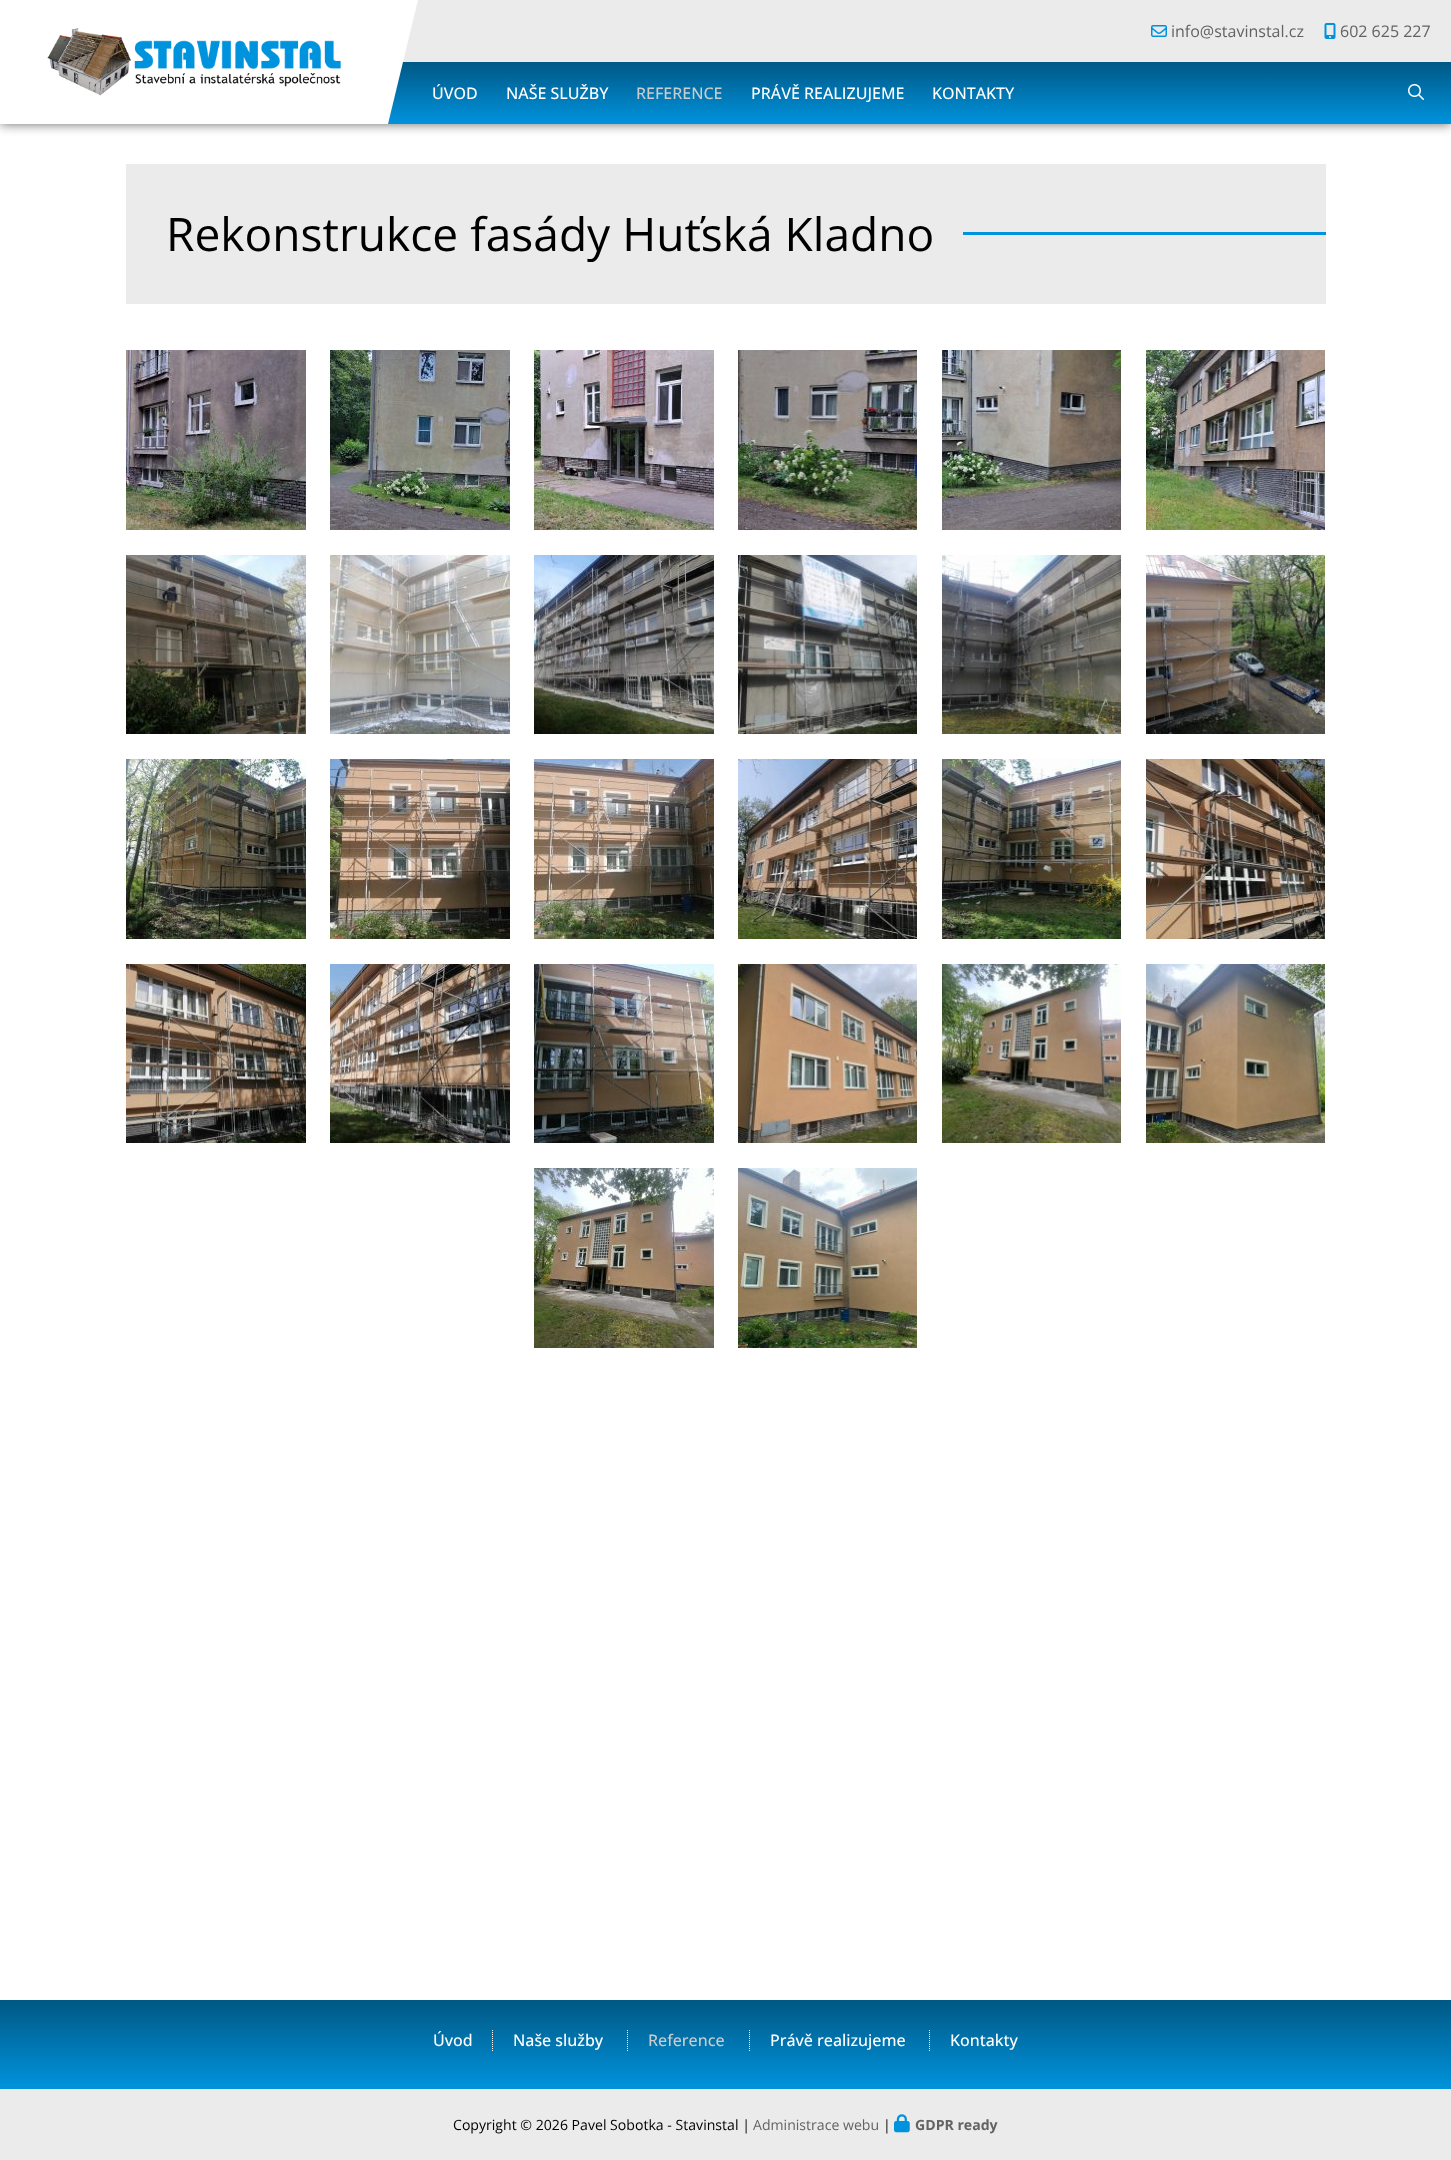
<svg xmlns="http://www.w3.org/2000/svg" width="1451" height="2160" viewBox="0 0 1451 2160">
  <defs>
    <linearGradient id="g1" gradientUnits="userSpaceOnUse" x1="920" y1="62" x2="920" y2="124"><stop offset="0" stop-color="#005885"/><stop offset="1" stop-color="#0093dd"/></linearGradient>
    <linearGradient id="g2" gradientUnits="userSpaceOnUse" x1="726" y1="2000" x2="726" y2="2089"><stop offset="0" stop-color="#005884"/><stop offset="1" stop-color="#0093dd"/></linearGradient>
  </defs>
  <rect width="100%" height="100%" fill="#fff"/>
  <path d="M0 0h1451v124H0z" fill="#00000099" filter="blur(6px)"/>
  <path d="M403 0h1048v62H403z" fill="#ebebeb"/>
  <path d="M0 0h388v124H0z" fill="#fff"/>
  <image x="47" y="28" width="294" height="68" href="img/1.png"/>
  <path d="M388 62h1063v62H388z" fill="url(#g1)"/>
  <path d="M388 0V124L418 0Z" fill="#fff"/>
  <image x="1151" y="25" width="16" height="12" href="img/2.png"/>
  <image x="1324" y="23" width="12" height="16" href="img/3.png"/>
  <image x="1408" y="84" width="16" height="16" href="img/4.png"/>
  <path d="M126 164h1200v140H126z" fill="#ebebeb"/>
  <path d="M963 232h363v3H963z" fill="#0093dd"/>
  <image x="126" y="350" width="180" height="180" href="img/5.png"/>
  <image x="330" y="350" width="180" height="180" href="img/6.png"/>
  <image x="534" y="350" width="180" height="180" href="img/7.png"/>
  <image x="738" y="350" width="179" height="180" href="img/8.png"/>
  <image x="942" y="350" width="179" height="180" href="img/9.png"/>
  <image x="1146" y="350" width="179" height="180" href="img/10.png"/>
  <image x="126" y="555" width="180" height="179" href="img/11.png"/>
  <image x="330" y="555" width="180" height="179" href="img/12.png"/>
  <image x="534" y="555" width="180" height="179" href="img/13.png"/>
  <image x="738" y="555" width="179" height="179" href="img/14.png"/>
  <image x="942" y="555" width="179" height="179" href="img/15.png"/>
  <image x="1146" y="555" width="179" height="179" href="img/16.png"/>
  <image x="126" y="759" width="180" height="180" href="img/17.png"/>
  <image x="330" y="759" width="180" height="180" href="img/18.png"/>
  <image x="534" y="759" width="180" height="180" href="img/19.png"/>
  <image x="738" y="759" width="179" height="180" href="img/20.png"/>
  <image x="942" y="759" width="179" height="180" href="img/21.png"/>
  <image x="1146" y="759" width="179" height="180" href="img/22.png"/>
  <image x="126" y="964" width="180" height="179" href="img/23.png"/>
  <image x="330" y="964" width="180" height="179" href="img/24.png"/>
  <image x="534" y="964" width="180" height="179" href="img/25.png"/>
  <image x="738" y="964" width="179" height="179" href="img/26.png"/>
  <image x="942" y="964" width="179" height="179" href="img/27.png"/>
  <image x="1146" y="964" width="179" height="179" href="img/28.png"/>
  <image x="534" y="1168" width="180" height="180" href="img/29.png"/>
  <image x="738" y="1168" width="179" height="180" href="img/30.png"/>
  <path d="M0 2000h1451v89H0z" fill="url(#g2)"/>
  <path d="M492.5 2030V2051" fill="none" stroke="#fff" stroke-dasharray="1 1"/>
  <path d="M627.5 2030V2051" fill="none" stroke="#fff" stroke-dasharray="1 1"/>
  <path d="M749.5 2030V2051" fill="none" stroke="#fff" stroke-dasharray="1 1"/>
  <path d="M929.5 2030V2051" fill="none" stroke="#fff" stroke-dasharray="1 1"/>
  <path d="M0 2089h1451v71H0z" fill="#ebebeb"/>
  <image x="894" y="2114" width="16" height="19" href="img/31.png"/>
  <g font-family="Open Sans" font-size="16" fill="#636363">
    <text x="1171" y="37">info@stavinstal.cz</text>
    <text x="1340" y="37">602 625 227</text>
  </g>
  <g font-family="Open Sans" font-size="16" font-weight="500" fill="#fff">
    <text x="432" y="99">ÚVOD</text>
    <text x="506" y="99">NAŠE SLUŽBY</text>
  </g>
  <text x="636" y="99" font-family="Open Sans" font-size="16" font-weight="500" fill="#ccc">REFERENCE</text>
  <g font-family="Open Sans" font-size="16" font-weight="500" fill="#fff">
    <text x="751" y="99">PRÁVĚ REALIZUJEME</text>
    <text x="932" y="99">KONTAKTY</text>
  </g>
  <text x="166" y="251" font-family="Open Sans" font-size="46.1" fill="#000">Rekonstrukce fasády Huťská Kladno</text>
  <g font-family="Open Sans" font-size="16" font-weight="500" fill="#fff">
    <text x="433" y="2046">Úvod</text>
    <text x="513" y="2046">Naše služby</text>
  </g>
  <text x="648" y="2046" font-family="Open Sans" font-size="16" font-weight="500" fill="#ccc">Reference</text>
  <g font-family="Open Sans" font-size="16" font-weight="500" fill="#fff">
    <text x="770" y="2046">Právě realizujeme</text>
    <text x="950" y="2046">Kontakty</text>
  </g>
  <text x="453" y="2130" font-family="Open Sans" font-size="14.1" fill="#000">Copyright © 2026 Pavel Sobotka - Stavinstal |</text>
  <text x="753" y="2130" font-family="Open Sans" font-size="14.1" fill="#636363">Administrace webu</text>
  <text x="883" y="2130" font-family="Open Sans" font-size="14.1" fill="#000">|</text>
  <text x="915" y="2130" font-family="Open Sans" font-size="14.1" font-weight="bold" fill="#636363">GDPR ready</text>
</svg>
